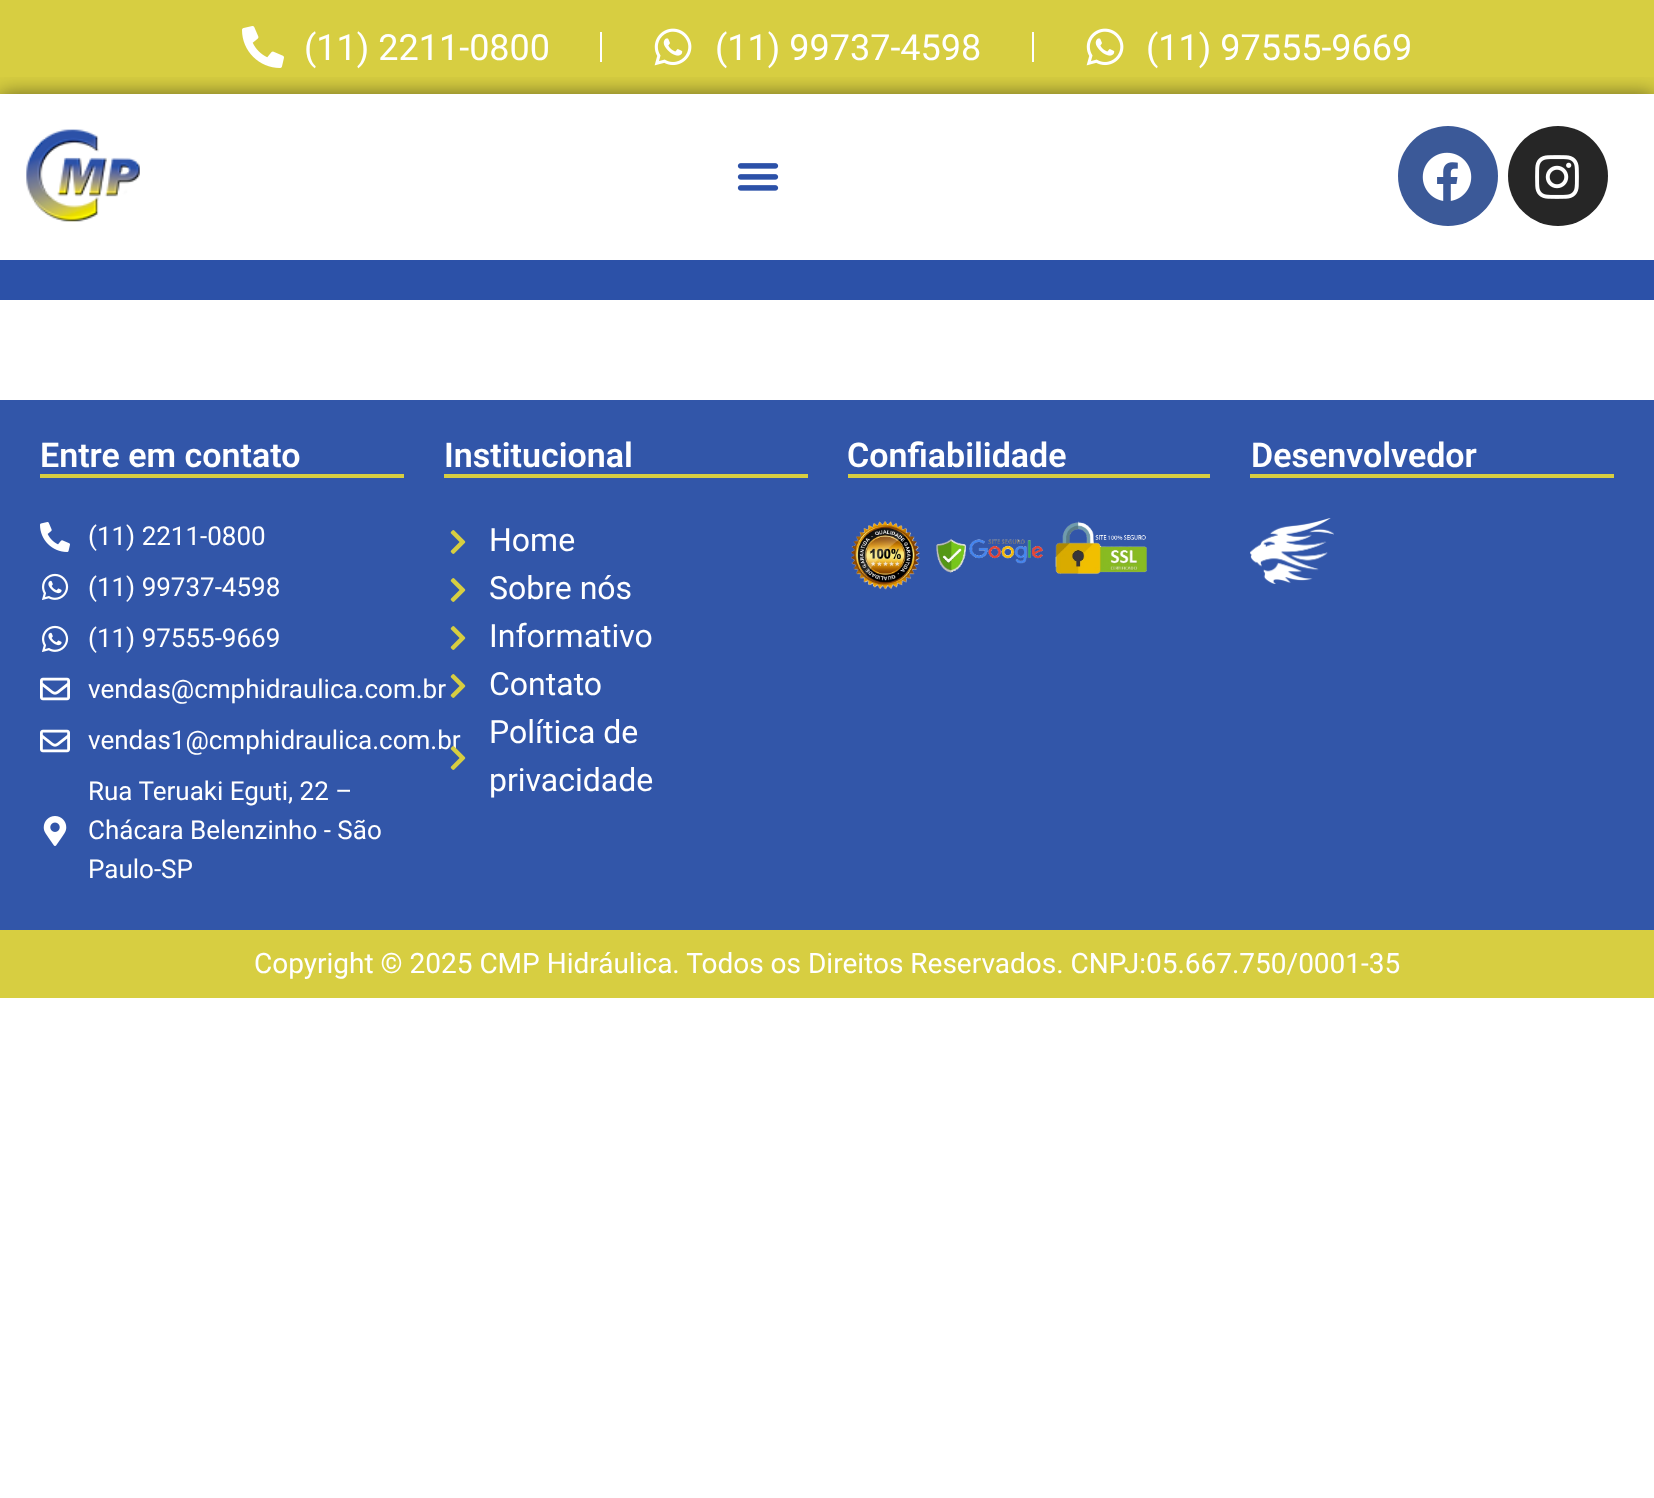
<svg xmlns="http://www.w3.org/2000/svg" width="1654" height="1498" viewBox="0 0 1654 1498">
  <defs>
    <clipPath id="clip1"><path d="M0 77h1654v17H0z"/></clipPath>
  </defs>
  <rect width="100%" height="100%" fill="#fff"/>
  <path d="M0 0h1654v94H0z" fill="#d7ce41"/>
  <image x="242" y="26" width="42" height="42" href="img/1.png"/>
  <path d="M600 32h2v30H600z" fill="#fff"/>
  <image x="654" y="28" width="38" height="38" href="img/2.png"/>
  <path d="M1032 32h2v30H1032z" fill="#fff"/>
  <image x="1086" y="28" width="38" height="38" href="img/2.png"/>
  <g clip-path="url(#clip1)">
    <path d="M0 94h1654v166H0z" fill="#00000080" filter="blur(10px)"/>
  </g>
  <image x="26" y="129" width="114" height="93" href="img/3.png"/>
  <image x="737" y="163" width="42" height="28" href="img/4.png"/>
  <circle cx="1448" cy="176" r="50" fill="#3b5998"/>
  <image x="1422" y="152" width="50" height="49" href="img/5.png"/>
  <circle cx="1558" cy="176" r="50" fill="#262626"/>
  <image x="1535" y="155" width="44" height="44" href="img/6.png"/>
  <path d="M0 260h1654v40H0z" fill="#2c51a8"/>
  <path d="M0 400h1654v530H0z" fill="#3256a9"/>
  <path d="M40 474h364v4H40z" fill="#d7ce41"/>
  <image x="40" y="522" width="30" height="30" href="img/7.png"/>
  <image x="42" y="573" width="27" height="27" href="img/8.png"/>
  <image x="42" y="625" width="27" height="27" href="img/8.png"/>
  <image x="40" y="677" width="30" height="24" href="img/9.png"/>
  <image x="40" y="729" width="30" height="24" href="img/9.png"/>
  <image x="43" y="816" width="24" height="30" href="img/10.png"/>
  <path d="M444 474h364v4H444z" fill="#d7ce41"/>
  <image x="450" y="530" width="16" height="24" href="img/11.png"/>
  <image x="450" y="578" width="16" height="24" href="img/11.png"/>
  <image x="450" y="626" width="16" height="24" href="img/11.png"/>
  <image x="450" y="674" width="16" height="24" href="img/11.png"/>
  <path d="M848 474h362v4H848z" fill="#d7ce41"/>
  <image x="851" y="521" width="296" height="69" href="img/13.png"/>
  <path d="M1250 474h364v4H1250z" fill="#d7ce41"/>
  <image x="1250" y="518" width="84" height="66" href="img/14.png"/>
  <path d="M0 930h1654v68H0z" fill="#d7ce41"/>
  <g font-family="Roboto" font-size="36" fill="#fff">
    <text x="304" y="60">(11) 2211-0800</text>
    <text x="715" y="60">(11) 99737-4598</text>
    <text x="1146" y="60">(11) 97555-9669</text>
  </g>
  <text x="40" y="467" font-family="Roboto" font-size="34" font-weight="600" fill="#fff">Entre em contato</text>
  <g font-family="Roboto" font-size="26" fill="#fff">
    <text x="88" y="545">(11) 2211-0800</text>
    <text x="88" y="596">(11) 99737-4598</text>
    <text x="88" y="647">(11) 97555-9669</text>
    <text x="88" y="698">vendas@cmphidraulica.com.br</text>
    <text x="88" y="749">vendas1@cmphidraulica.com.br</text>
    <text x="88" y="800">Rua Teruaki Eguti, 22 –</text>
    <text x="88" y="839">Chácara Belenzinho - São</text>
    <text x="88" y="878">Paulo-SP</text>
  </g>
  <text x="444" y="467" font-family="Roboto" font-size="34" font-weight="600" fill="#fff">Institucional</text>
  <g font-family="Roboto" font-size="32" fill="#fff">
    <text x="489" y="551">Home</text>
    <text x="489" y="599">Sobre nós</text>
    <text x="489" y="647">Informativo</text>
    <text x="489" y="695">Contato</text>
  </g>
  <image x="450" y="746" width="16" height="24" href="img/12.png"/>
  <g font-family="Roboto" font-size="32" fill="#fff">
    <text x="489" y="743">Política de</text>
    <text x="489" y="791">privacidade</text>
  </g>
  <g font-family="Roboto" font-size="34" font-weight="600" fill="#fff">
    <text x="847" y="467">Confiabilidade</text>
    <text x="1251" y="467">Desenvolvedor</text>
  </g>
  <text x="254" y="973" font-family="Roboto" font-size="28" fill="#fff">Copyright © 2025 CMP Hidráulica. Todos os Direitos Reservados. CNPJ:05.667.750/0001-35</text>
</svg>
